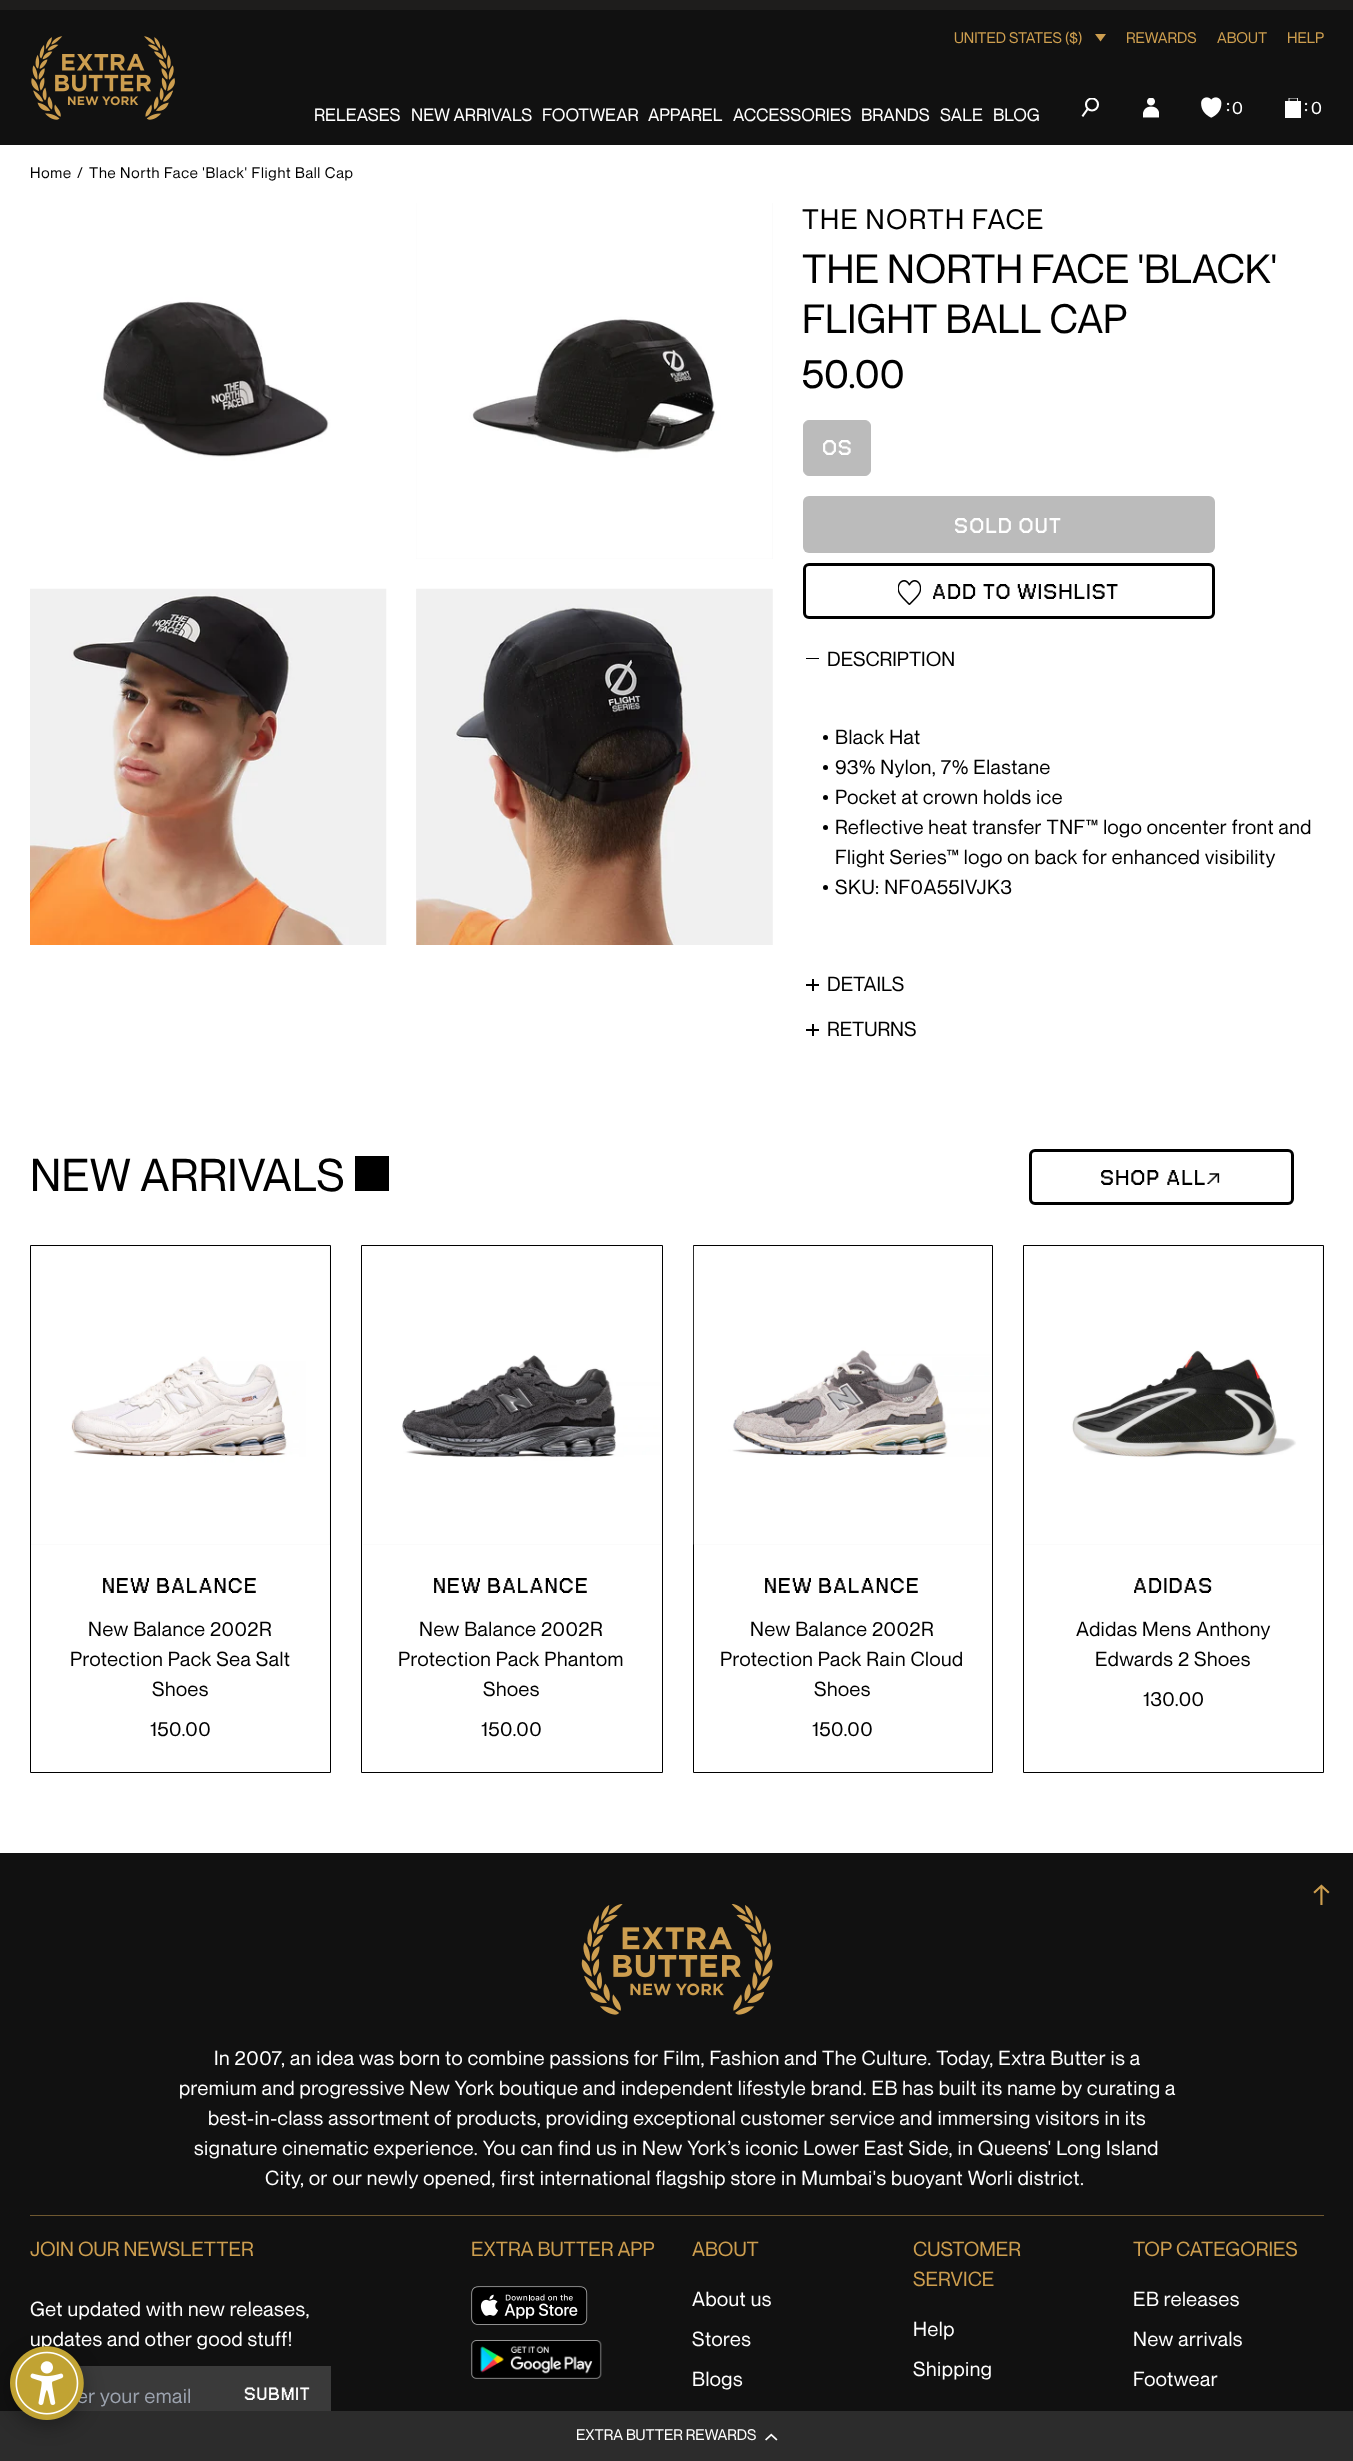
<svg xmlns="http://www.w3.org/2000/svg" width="1353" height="2461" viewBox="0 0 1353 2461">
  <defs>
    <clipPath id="clip1"><path d="M1081 98h19v20H1081z"/></clipPath>
    <clipPath id="clip2"><path d="M1285 98h16v20H1285z"/></clipPath>
  </defs>
  <rect width="100%" height="100%" fill="#fff"/>
  <path d="M0 0h1353v10H0z" fill="#1e1d1c"/>
  <path d="M0 10h1353v135H0z" fill="#111"/>
  <path d="M1095 34H1106L1100.5 41.5Z" fill="#cd9e4f" fill-rule="evenodd"/>
  <image x="31" y="36" width="144" height="84" href="img/1.png"/>
  <g clip-path="url(#clip1)">
    <circle cx="1092" cy="104.5" r="6" fill="none" stroke="#fff" stroke-width="2.1"/>
  </g>
  <path d="M1087 110L1083 115.5" fill="none" stroke="#fff" stroke-width="2.1" stroke-linecap="square"/>
  <image x="1143" y="98" width="16" height="20" href="img/2.png"/>
  <image x="1201" y="97" width="21" height="21" href="img/3.png"/>
  <path d="M1285 101h16v17H1285z" fill="#fff"/>
  <g clip-path="url(#clip2)">
    <path d="M1289 98H1297.5V104H1289Z" fill="none" stroke="#fff" stroke-width="0.9"/>
  </g>
  <image x="30" y="203" width="356" height="356" href="img/4.png"/>
  <path d="M416 203h357v356H416z" fill="#f6f6f7"/>
  <image x="416" y="203" width="357" height="356" href="img/5.png"/>
  <image x="30" y="588" width="357" height="357" href="img/6.png"/>
  <path d="M416 589h357v356H416z" fill="#f6f6f7"/>
  <image x="416" y="588" width="357" height="357" href="img/7.png"/>
  <rect x="803.5" y="420.5" width="67" height="55" rx="5.5" fill="#bbb" stroke="#bbb"/>
  <rect x="803" y="496" width="412" height="57" rx="6" fill="#bbb"/>
  <rect x="804.5" y="564.5" width="409" height="53" rx="4.5" fill="none" stroke="#000" stroke-width="3"/>
  <image x="898" y="580" width="23" height="25" href="img/8.png"/>
  <path d="M806 658h13v1H806z" fill="#000"/>
  <circle cx="825.5" cy="737.5" r="2.5" fill="#000"/>
  <circle cx="825.5" cy="767.5" r="2.5" fill="#000"/>
  <circle cx="825.5" cy="797.5" r="2.5" fill="#000"/>
  <circle cx="825.5" cy="827.5" r="2.5" fill="#000"/>
  <circle cx="825.5" cy="887.5" r="2.5" fill="#000"/>
  <path d="M806 984h13v2H806z" fill="#000"/>
  <path d="M812 979h2v12H812z" fill="#000"/>
  <path d="M806 1029h13v2H806z" fill="#000"/>
  <path d="M812 1024h2v12H812z" fill="#000"/>
  <path d="M355 1156h34v35H355z" fill="#000"/>
  <rect x="1030.5" y="1150.5" width="262" height="53" rx="4.5" fill="none" stroke="#000" stroke-width="3"/>
  <path d="M30.5 1245.5h300v527H30.5z" fill="none" stroke="#000"/>
  <path d="M31 1246h299v299H31z" fill="#f6f6f7"/>
  <image x="31" y="1246" width="299" height="299" href="img/9.png"/>
  <path d="M361.5 1245.5h301v527H361.5z" fill="none" stroke="#000"/>
  <path d="M363 1246h298v299H363z" fill="#f6f6f7"/>
  <image x="363" y="1246" width="298" height="299" href="img/10.png"/>
  <path d="M693.5 1245.5h299v527H693.5z" fill="none" stroke="#000"/>
  <path d="M694 1246h297v299H694z" fill="#f6f6f7"/>
  <image x="693" y="1246" width="298" height="299" href="img/11.png"/>
  <path d="M1023.5 1245.5h300v527H1023.5z" fill="none" stroke="#000"/>
  <path d="M1025 1246h298v299H1025z" fill="#f6f6f7"/>
  <image x="1025" y="1246" width="297" height="299" href="img/12.png"/>
  <path d="M0 1853h1353v558H0z" fill="#111"/>
  <image x="581" y="1904" width="192" height="111" href="img/13.png"/>
  <path d="M30 2215h1294v1H30z" fill="#6f5830"/>
  <path d="M71 2366h260v45H71z" fill="#3a3a3a"/>
  <image x="471" y="2286" width="117" height="39" href="img/14.png"/>
  <image x="471" y="2340" width="131" height="39" href="img/15.png"/>
  <path d="M0 2411h1353v50H0z" fill="#2c2c2c"/>
  <image x="765" y="2433" width="13" height="8" href="img/16.png"/>
  <rect x="10" y="2353" width="74" height="73" rx="36.5" fill="#0000004d" filter="blur(9.5px)"/>
  <g font-family="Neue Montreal" font-size="15" fill="#cd9e4f">
    <text x="954" y="43">UNITED STATES ($)</text>
    <text x="1126" y="43">REWARDS</text>
    <text x="1217" y="43">ABOUT</text>
    <text x="1287" y="43">HELP</text>
  </g>
  <g font-family="Neue Montreal" font-size="17.5" fill="#fff">
    <text x="314" y="121">RELEASES</text>
    <text x="411" y="121">NEW ARRIVALS</text>
    <text x="542" y="121">FOOTWEAR</text>
    <text x="648" y="121">APPAREL</text>
    <text x="733" y="121">ACCESSORIES</text>
    <text x="861" y="121">BRANDS</text>
    <text x="940" y="121">SALE</text>
    <text x="993" y="121">BLOG</text>
  </g>
  <text x="1226" y="111" font-family="Neue Montreal" font-size="20" fill="#fff">:</text>
  <text x="1232" y="114" font-family="Neue Montreal" font-size="17.5" letter-spacing="0.75" fill="#fff">0</text>
  <text x="1304" y="111" font-family="Neue Montreal" font-size="20" fill="#fff">:</text>
  <text x="1311" y="114" font-family="Neue Montreal" font-size="17.5" letter-spacing="0.75" fill="#fff">0</text>
  <g font-family="Neue Montreal" font-size="15" letter-spacing="0.75" fill="#000">
    <text x="30" y="178">Home</text>
    <text x="77" y="178">/</text>
    <text x="89" y="178">The North Face 'Black' Flight Ball Cap</text>
  </g>
  <text x="802" y="229" font-family="Neue Montreal" font-size="27.5" letter-spacing="1.25" fill="#000">THE NORTH FACE</text>
  <g font-family="Neue Montreal" font-size="40" fill="#000">
    <text x="802" y="283">THE NORTH FACE 'BLACK'</text>
    <text x="802" y="333">FLIGHT BALL CAP</text>
    <text x="802" y="388">50.00</text>
  </g>
  <g font-family="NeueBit" font-size="30" font-weight="bold" letter-spacing="1.25" fill="#fff">
    <text x="822" y="455">OS</text>
    <text x="954" y="533">SOLD OUT</text>
  </g>
  <text x="932" y="599" font-family="NeueBit" font-size="30" font-weight="bold" letter-spacing="1.25" fill="#000">ADD TO WISHLIST</text>
  <text x="827" y="666" font-family="Neue Montreal" font-size="20" fill="#000">DESCRIPTION</text>
  <g font-family="Neue Montreal" font-size="20" letter-spacing="0.5" fill="#000">
    <text x="835" y="744">Black Hat</text>
    <text x="835" y="774">93% Nylon, 7% Elastane</text>
    <text x="835" y="804">Pocket at crown holds ice</text>
    <text x="835" y="834">Reflective heat transfer TNF™ logo oncenter front and</text>
    <text x="835" y="864">Flight Series™ logo on back for enhanced visibility</text>
    <text x="835" y="894">SKU: NF0A55IVJK3</text>
  </g>
  <g font-family="Neue Montreal" font-size="20" fill="#000">
    <text x="827" y="991">DETAILS</text>
    <text x="827" y="1036">RETURNS</text>
  </g>
  <text x="30" y="1191" font-family="Neue Montreal" font-size="45" letter-spacing="0.25" fill="#000">NEW ARRIVALS</text>
  <g font-family="NeueBit" font-size="30" font-weight="bold" letter-spacing="1.25" fill="#000">
    <text x="1100" y="1185">SHOP ALL↗</text>
    <text x="102" y="1593">NEW BALANCE</text>
  </g>
  <g font-family="Neue Montreal" font-size="20" letter-spacing="0.5" fill="#000">
    <text x="88" y="1636">New Balance 2002R</text>
    <text x="70" y="1666">Protection Pack Sea Salt</text>
    <text x="152" y="1696">Shoes</text>
    <text x="150" y="1736">150.00</text>
  </g>
  <text x="433" y="1593" font-family="NeueBit" font-size="30" font-weight="bold" letter-spacing="1.25" fill="#000">NEW BALANCE</text>
  <g font-family="Neue Montreal" font-size="20" letter-spacing="0.5" fill="#000">
    <text x="419" y="1636">New Balance 2002R</text>
    <text x="398" y="1666">Protection Pack Phantom</text>
    <text x="483" y="1696">Shoes</text>
    <text x="481" y="1736">150.00</text>
  </g>
  <text x="764" y="1593" font-family="NeueBit" font-size="30" font-weight="bold" letter-spacing="1.25" fill="#000">NEW BALANCE</text>
  <g font-family="Neue Montreal" font-size="20" letter-spacing="0.5" fill="#000">
    <text x="750" y="1636">New Balance 2002R</text>
    <text x="720" y="1666">Protection Pack Rain Cloud</text>
    <text x="814" y="1696">Shoes</text>
    <text x="812" y="1736">150.00</text>
  </g>
  <text x="1133" y="1593" font-family="NeueBit" font-size="30" font-weight="bold" letter-spacing="1.25" fill="#000">ADIDAS</text>
  <g font-family="Neue Montreal" font-size="20" letter-spacing="0.5" fill="#000">
    <text x="1076" y="1636">Adidas Mens Anthony</text>
    <text x="1095" y="1666">Edwards 2 Shoes</text>
    <text x="1143" y="1706">130.00</text>
  </g>
  <text x="1331" y="1906" transform="rotate(-90 1331 1906)" font-family="Neue Montreal" font-size="30" fill="#cd9e4f">→</text>
  <g font-family="Neue Montreal" font-size="20" letter-spacing="0.5" fill="#fff">
    <text x="214" y="2065">In 2007, an idea was born to combine passions for Film, Fashion and The Culture. Today, Extra Butter is a</text>
    <text x="179" y="2095">premium and progressive New York boutique and independent lifestyle brand. EB has built its name by curating a</text>
    <text x="208" y="2125">best-in-class assortment of products, providing exceptional customer service and immersing visitors in its</text>
    <text x="194" y="2155">signature cinematic experience. You can find us in New York’s iconic Lower East Side, in Queens' Long Island</text>
    <text x="265" y="2185">City, or our newly opened, first international flagship store in Mumbai's buoyant Worli district.</text>
  </g>
  <text x="30" y="2256" font-family="Neue Montreal" font-size="20" fill="#cd9e4f">JOIN OUR NEWSLETTER</text>
  <g font-family="Neue Montreal" font-size="20" letter-spacing="0.5" fill="#fff">
    <text x="30" y="2316">Get updated with new releases,</text>
    <text x="30" y="2346">updates and other good stuff!</text>
  </g>
  <text x="77" y="2403" font-family="Neue Montreal" font-size="20" letter-spacing="0.5" fill="#9ca3af">er your email</text>
  <text x="244" y="2400" font-family="NeueBit" font-size="25" font-weight="bold" letter-spacing="1" fill="#fff">SUBMIT</text>
  <g font-family="Neue Montreal" font-size="20" fill="#cd9e4f">
    <text x="471" y="2256">EXTRA BUTTER APP</text>
    <text x="692" y="2256">ABOUT</text>
  </g>
  <g font-family="Neue Montreal" font-size="20" letter-spacing="0.5" fill="#fff">
    <text x="692" y="2306">About us</text>
    <text x="692" y="2346">Stores</text>
    <text x="692" y="2386">Blogs</text>
  </g>
  <g font-family="Neue Montreal" font-size="20" fill="#cd9e4f">
    <text x="913" y="2256">CUSTOMER</text>
    <text x="913" y="2286">SERVICE</text>
  </g>
  <g font-family="Neue Montreal" font-size="20" letter-spacing="0.5" fill="#fff">
    <text x="913" y="2336">Help</text>
    <text x="913" y="2376">Shipping</text>
  </g>
  <text x="1133" y="2256" font-family="Neue Montreal" font-size="20" fill="#cd9e4f">TOP CATEGORIES</text>
  <g font-family="Neue Montreal" font-size="20" letter-spacing="0.5" fill="#fff">
    <text x="1133" y="2306">EB releases</text>
    <text x="1133" y="2346">New arrivals</text>
    <text x="1133" y="2386">Footwear</text>
  </g>
  <text x="576" y="2440" font-family="Neue Montreal" font-size="15" fill="#fff">EXTRA BUTTER REWARDS</text>
  <image x="10" y="2346" width="74" height="74" href="img/17.png"/>
</svg>
